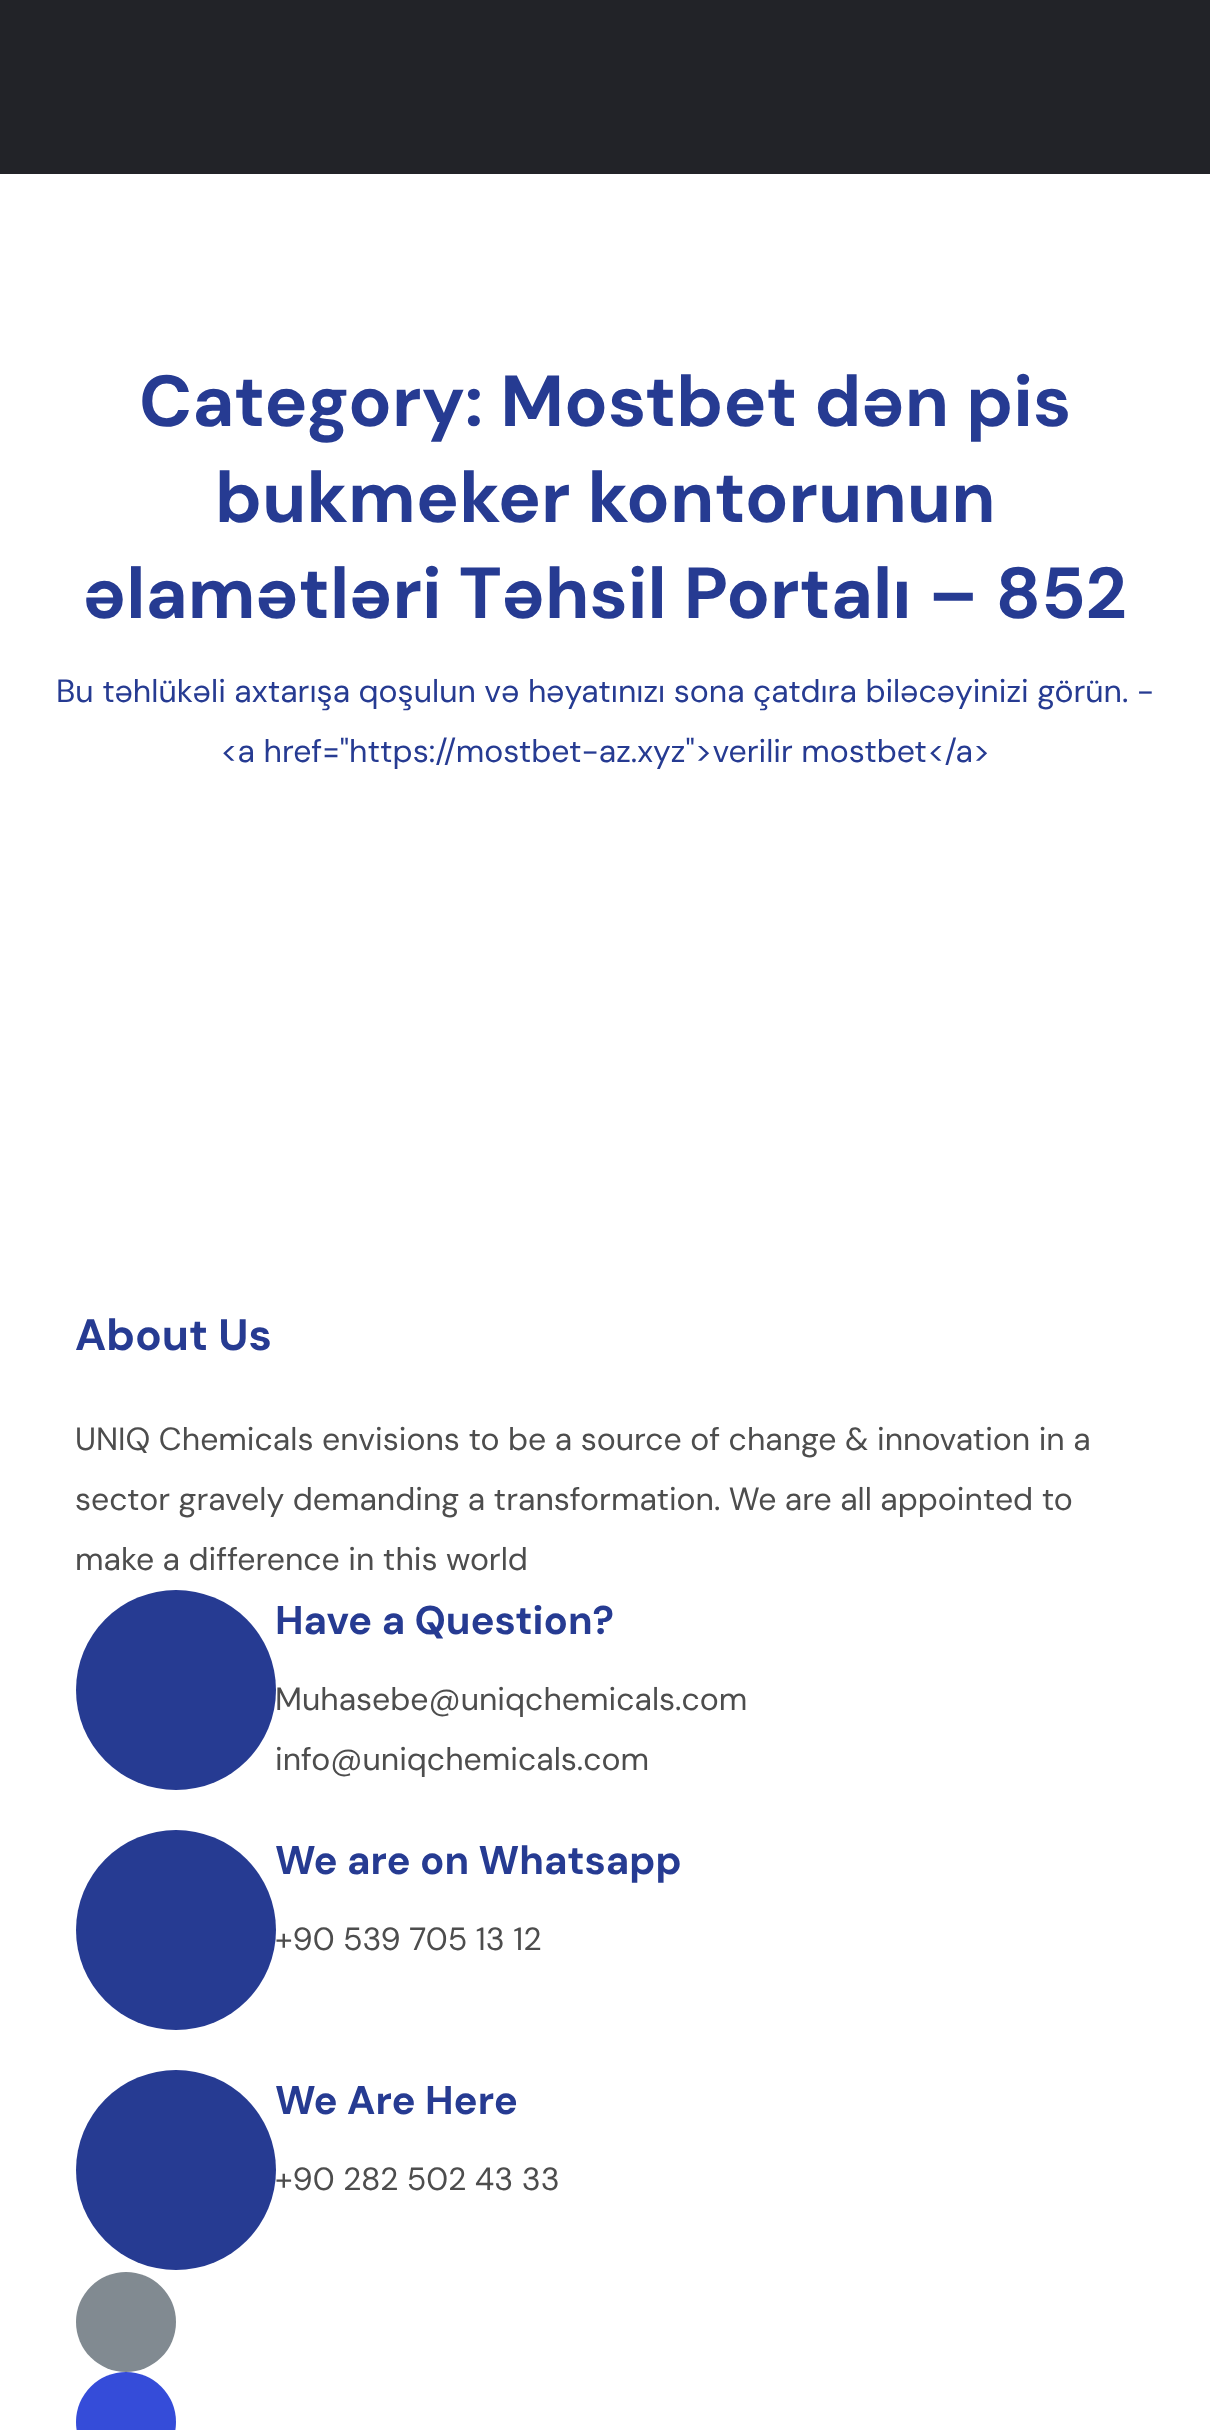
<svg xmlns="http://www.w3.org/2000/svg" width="1210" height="2430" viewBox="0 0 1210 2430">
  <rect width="100%" height="100%" fill="#fff"/>
  <path d="M0 0h1210v174H0z" fill="#222328"/>
  <circle cx="176" cy="1690" r="100" fill="#263b92"/>
  <circle cx="176" cy="1930" r="100" fill="#263b92"/>
  <circle cx="176" cy="2170" r="100" fill="#263b92"/>
  <circle cx="126" cy="2322" r="50" fill="#818a91"/>
  <circle cx="126" cy="2422" r="50" fill="#354cd9"/>
  <g font-family="DM Sans" font-size="72" font-weight="bold" fill="#263b92">
    <text x="139" y="426">Category: Mostbet dən pis</text>
    <text x="215" y="522">bukmeker kontorunun</text>
    <text x="83" y="618">əlamətləri Təhsil Portalı – 852</text>
  </g>
  <g font-family="DM Sans" font-size="32" fill="#263b92">
    <text x="56" y="702">Bu təhlükəli axtarışa qoşulun və həyatınızı sona çatdıra biləcəyinizi görün. -</text>
    <text x="220" y="762">&lt;a href="https://mostbet-az.xyz"&gt;verilir mostbet&lt;/a&gt;</text>
  </g>
  <text x="75" y="1350" font-family="DM Sans" font-size="44" font-weight="bold" fill="#263b92">About Us</text>
  <g font-family="DM Sans" font-size="32" fill="#4d4d4d">
    <text x="75" y="1450">UNIQ Chemicals envisions to be a source of change &amp; innovation in a</text>
    <text x="75" y="1510">sector gravely demanding a transformation. We are all appointed to</text>
    <text x="75" y="1570">make a difference in this world</text>
  </g>
  <text x="275" y="1634" font-family="DM Sans" font-size="40" font-weight="bold" fill="#263b92">Have a Question?</text>
  <g font-family="DM Sans" font-size="32" fill="#4d4d4d">
    <text x="275" y="1710">Muhasebe@uniqchemicals.com</text>
    <text x="275" y="1770">info@uniqchemicals.com</text>
  </g>
  <text x="275" y="1874" font-family="DM Sans" font-size="40" font-weight="bold" fill="#263b92">We are on Whatsapp</text>
  <text x="275" y="1950" font-family="DM Sans" font-size="32" fill="#4d4d4d">+90 539 705 13 12</text>
  <text x="275" y="2114" font-family="DM Sans" font-size="40" font-weight="bold" fill="#263b92">We Are Here</text>
  <text x="275" y="2190" font-family="DM Sans" font-size="32" fill="#4d4d4d">+90 282 502 43 33</text>
</svg>
